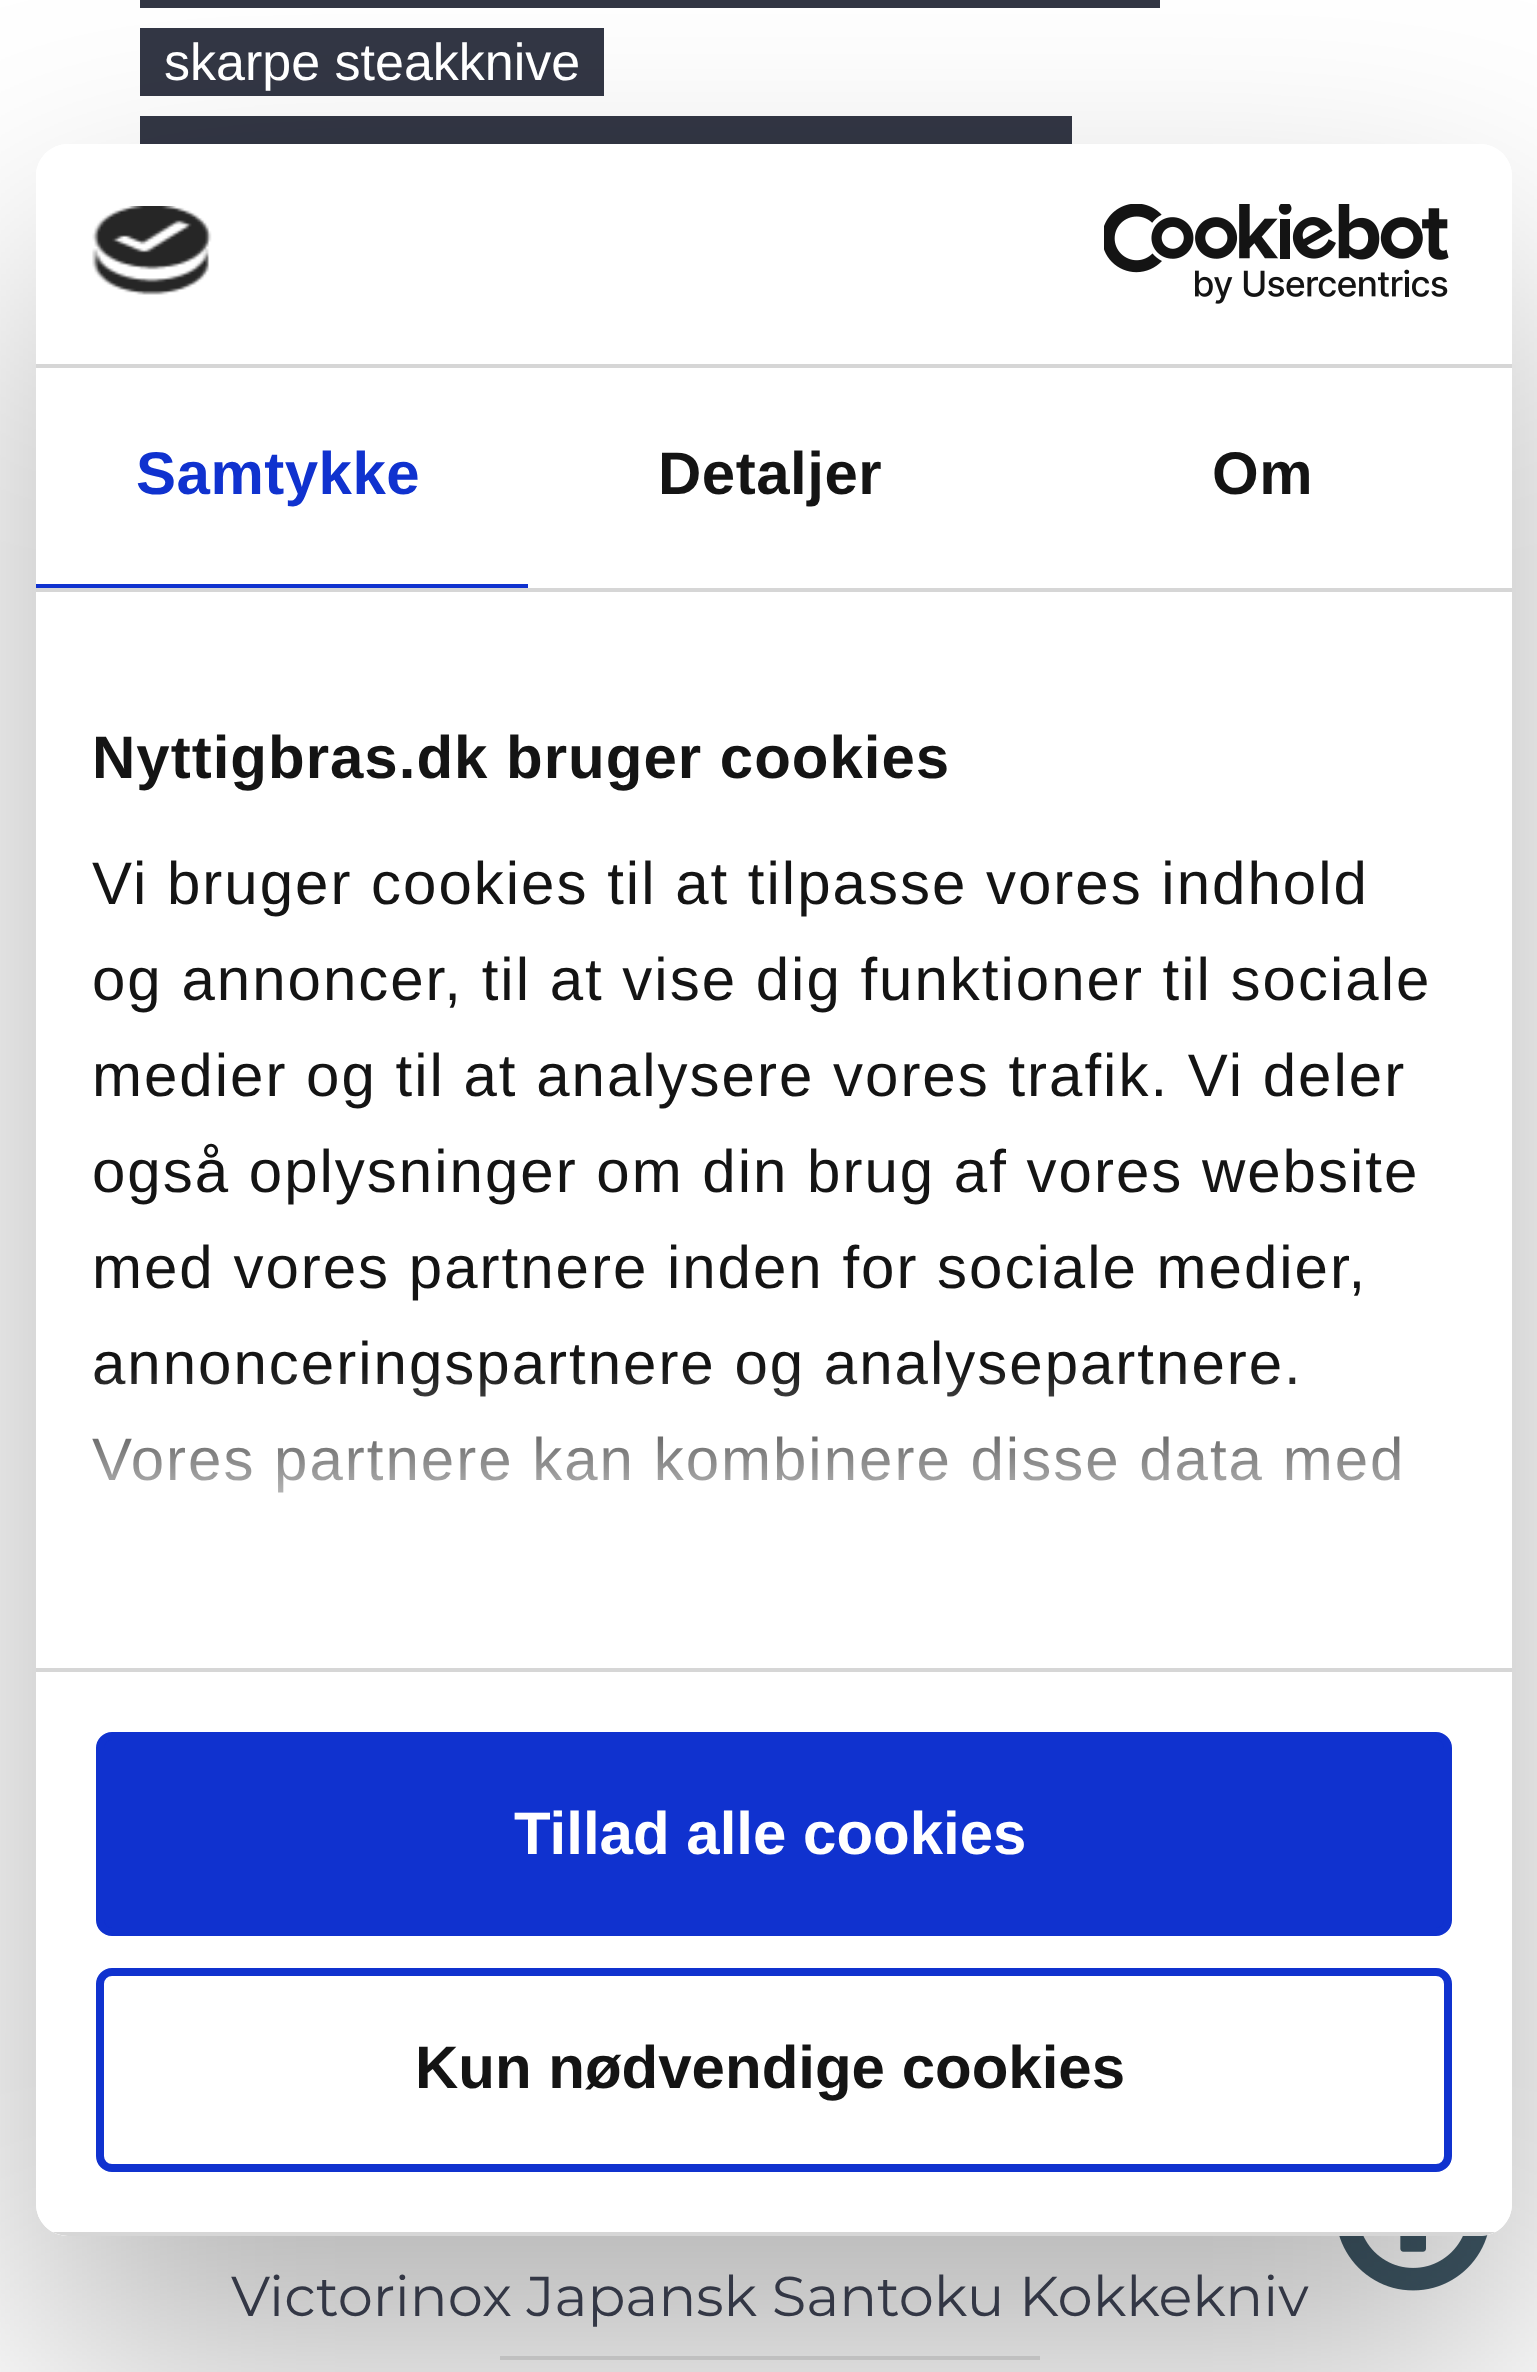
<svg xmlns="http://www.w3.org/2000/svg" width="1537" height="2372" viewBox="0 0 1537 2372">
  <defs>
    <clipPath id="clip1"><path d="M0 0H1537V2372H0ZM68 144H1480C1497.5 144 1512 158.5 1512 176V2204C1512 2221.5 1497.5 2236 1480 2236H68C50.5 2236 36 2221.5 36 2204V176C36 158.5 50.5 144 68 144Z" clip-rule="evenodd"/></clipPath>
    <clipPath id="clip2"><rect x="36" y="144" width="1476" height="2092" rx="32"/></clipPath>
    <linearGradient id="g1" gradientUnits="userSpaceOnUse" x1="746" y1="1666" x2="746" y2="1366"><stop offset="0" stop-color="#fff"/><stop offset="0.5" stop-color="#fff" stop-opacity="0.8"/><stop offset="1" stop-color="#fff" stop-opacity="0"/></linearGradient>
  </defs>
  <rect width="100%" height="100%" fill="#fff"/>
  <path d="M140 0h1020v8H140z" fill="#333745"/>
  <path d="M140 28h464v68H140z" fill="#333745"/>
  <path d="M140 116h932v28H140z" fill="#333745"/>
  <path d="M500 2356h540v4H500z" fill="#e4e4e4"/>
  <image x="1339" y="2234" width="149" height="57" href="img/3.png"/>
  <g clip-path="url(#clip1)">
    <rect x="36" y="272" width="1476" height="2092" rx="32" fill="#0000004d" filter="blur(136px)"/>
  </g>
  <rect x="36" y="144" width="1476" height="2092" rx="32" fill="#fff"/>
  <path d="M36 364h1476v4H36z" fill="#d6d6d6"/>
  <image x="92" y="206" width="120" height="89" href="img/1.png"/>
  <image x="1104" y="204" width="345" height="100" href="img/2.png"/>
  <path d="M36 588h1476v4H36z" fill="#d6d6d6"/>
  <path d="M36 584h492v4H36z" fill="#1032cf"/>
  <path d="M36 1668h1476v4H36z" fill="#d6d6d6"/>
  <g clip-path="url(#clip2)">
    <path d="M52 2232h1444v4H52z" fill="#d6d6d6"/>
  </g>
  <rect x="100" y="1736" width="1348" height="196" rx="12" fill="#1032cf" stroke="#1032cf" stroke-width="8"/>
  <rect x="100" y="1972" width="1348" height="196" rx="12" fill="none" stroke="#1032cf" stroke-width="8"/>
  <text x="164" y="80" font-family="Liberation Sans" font-size="52" fill="#fff">skarpe steakknive</text>
  <text x="231" y="2316" font-family="Montserrat" font-size="56" fill="#333745">Victorinox Japansk Santoku Kokkekniv</text>
  <text x="136" y="494" font-family="Liberation Sans" font-size="60" font-weight="bold" letter-spacing="0.5" fill="#1032cf">Samtykke</text>
  <g font-family="Liberation Sans" font-size="60" font-weight="bold" letter-spacing="0.5" fill="#141414">
    <text x="658" y="494">Detaljer</text>
    <text x="1212" y="494">Om</text>
  </g>
  <text x="92" y="778" font-family="Liberation Sans" font-size="60" font-weight="bold" letter-spacing="1" fill="#141414">Nyttigbras.dk bruger cookies</text>
  <g font-family="Liberation Sans" font-size="60" letter-spacing="2" fill="#141414">
    <text x="92" y="904">Vi bruger cookies til at tilpasse vores indhold</text>
    <text x="92" y="1000">og annoncer, til at vise dig funktioner til sociale</text>
    <text x="92" y="1096">medier og til at analysere vores trafik. Vi deler</text>
    <text x="92" y="1192">også oplysninger om din brug af vores website</text>
    <text x="92" y="1288">med vores partnere inden for sociale medier,</text>
    <text x="92" y="1384">annonceringspartnere og analysepartnere.</text>
    <text x="92" y="1480">Vores partnere kan kombinere disse data med</text>
  </g>
  <path d="M92 1370h1308v123H92z" fill="url(#g1)"/>
  <text x="514" y="1854" font-family="Liberation Sans" font-size="60" font-weight="bold" fill="#fff">Tillad alle cookies</text>
  <text x="415" y="2088" font-family="Liberation Sans" font-size="60" font-weight="bold" fill="#141414">Kun nødvendige cookies</text>
</svg>
